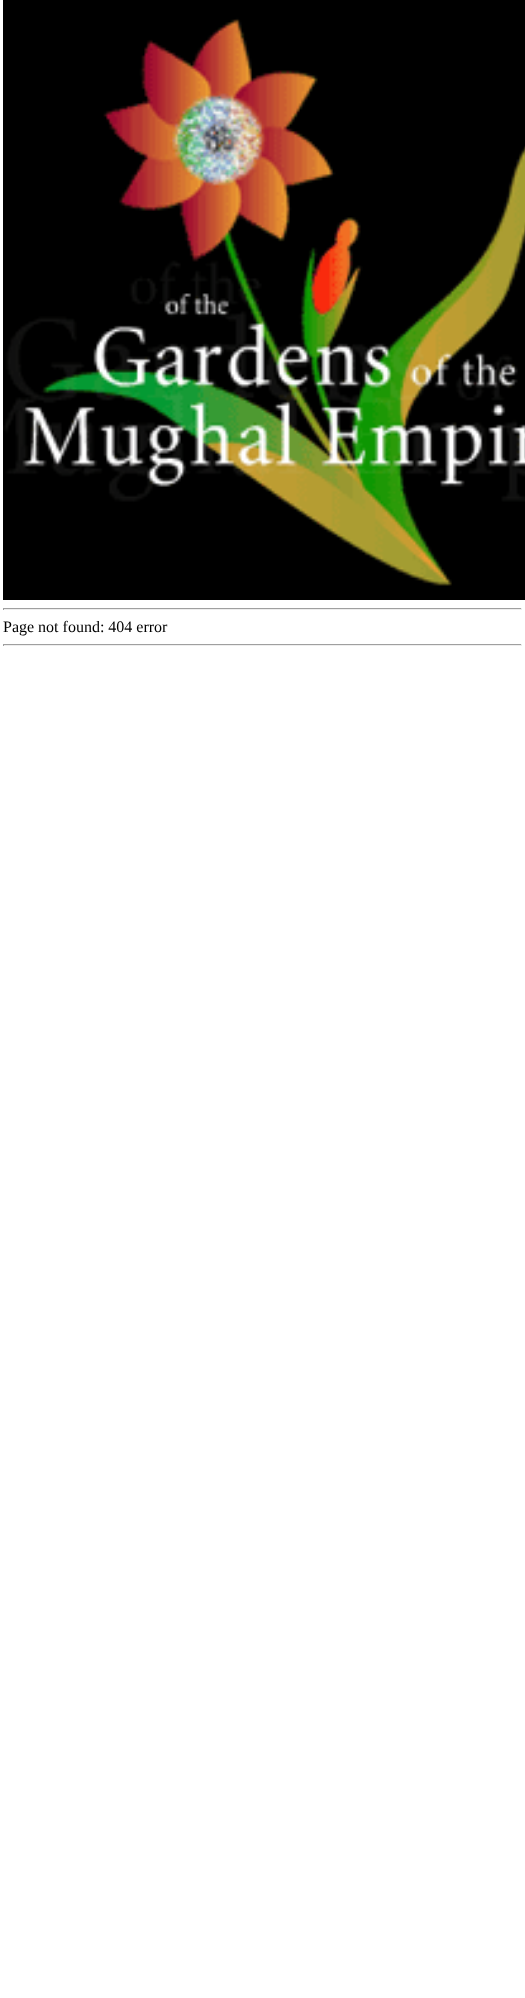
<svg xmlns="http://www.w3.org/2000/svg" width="525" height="1998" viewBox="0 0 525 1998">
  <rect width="100%" height="100%" fill="#fff"/>
  <image x="3" y="0" width="522" height="600" href="img/1.png"/>
  <path d="M3 608h519v1H3z" fill="#9f9f9f"/>
  <path d="M521 608h1v2H521z" fill="#eee"/>
  <path d="M3 609h519v1H3z" fill="#eee"/>
  <path d="M3 608h1v2H3z" fill="#9f9f9f"/>
  <path d="M3 644h519v1H3z" fill="#9f9f9f"/>
  <path d="M521 644h1v2H521z" fill="#eee"/>
  <path d="M3 645h519v1H3z" fill="#eee"/>
  <path d="M3 644h1v2H3z" fill="#9f9f9f"/>
  <text x="3" y="632" font-family="Liberation Serif" font-size="16" fill="#000">Page not found: 404 error</text>
</svg>
